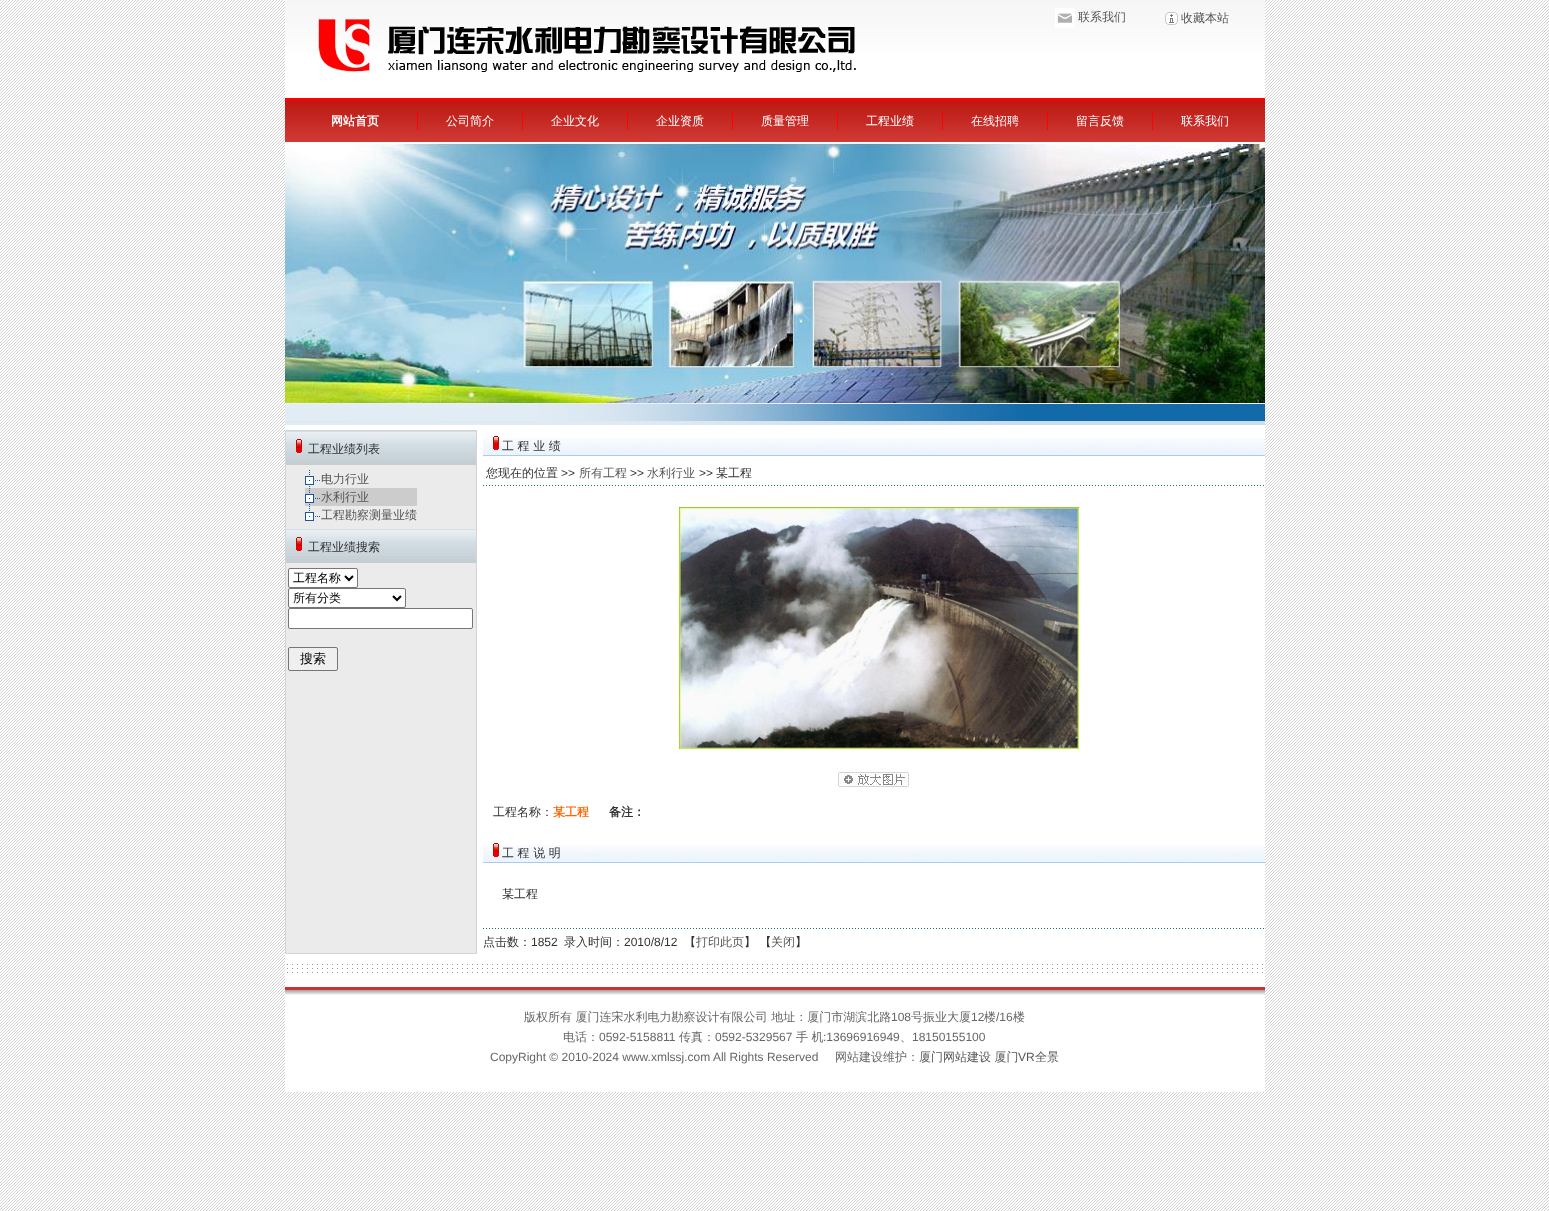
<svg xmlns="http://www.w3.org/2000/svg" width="1549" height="1211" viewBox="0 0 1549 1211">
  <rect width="100%" height="100%" fill="#fff"/>
  <image x="0" y="0" width="1549" height="1211" href="img/1.png"/>
  <image x="285" y="0" width="980" height="98" href="img/2.png"/>
  <image x="318" y="18" width="538" height="54" href="img/3.png"/>
  <image x="1055" y="8" width="20" height="20" href="img/4.png"/>
  <image x="1165" y="12" width="13" height="13" href="img/5.png"/>
  <image x="285" y="98" width="980" height="45" href="img/6.png"/>
  <image x="417" y="112" width="1" height="18" href="img/7.png"/>
  <image x="522" y="112" width="1" height="18" href="img/7.png"/>
  <image x="627" y="112" width="1" height="18" href="img/7.png"/>
  <image x="732" y="112" width="1" height="18" href="img/7.png"/>
  <image x="837" y="112" width="1" height="18" href="img/7.png"/>
  <image x="942" y="112" width="1" height="18" href="img/7.png"/>
  <image x="1047" y="112" width="1" height="18" href="img/7.png"/>
  <image x="1152" y="112" width="1" height="18" href="img/7.png"/>
  <image x="285" y="143" width="980" height="260" href="img/8.png"/>
  <path d="M285 403h980v1H285z" fill="#f0f0f0"/>
  <image x="285" y="404" width="980" height="21" href="img/9.png"/>
  <path d="M285 425h980v5H285z" fill="#fff"/>
  <path d="M477 430h788v524H477z" fill="#fff"/>
  <path d="M286 465h190v488H286z" fill="#ecebec"/>
  <path d="M285.5 430.5h191v523H285.5z" fill="none" stroke="#d2d3d3"/>
  <image x="286" y="431" width="190" height="34" href="img/10.png"/>
  <image x="296" y="439" width="6" height="14" href="img/11.png"/>
  <image x="305" y="470" width="15" height="17" href="img/12.png"/>
  <path d="M305 488h112v18H305z" fill="#ccc"/>
  <image x="305" y="488" width="15" height="17" href="img/13.png"/>
  <image x="305" y="506" width="15" height="15" href="img/14.png"/>
  <image x="286" y="529" width="190" height="34" href="img/10.png"/>
  <image x="296" y="537" width="6" height="14" href="img/11.png"/>
  <rect x="288.5" y="568.5" width="69" height="19" rx="1.5" fill="#fff" stroke="#767676"/>
  <path d="M345 576L349 580L353 576" fill="none" stroke="#000" stroke-width="2"/>
  <rect x="288.5" y="588.5" width="117" height="19" rx="1.5" fill="#fff" stroke="#767676"/>
  <path d="M393 596L397 600L401 596" fill="none" stroke="#000" stroke-width="2"/>
  <rect x="288.5" y="608.5" width="184" height="20" rx="1.5" fill="#fff" stroke="#767676"/>
  <rect x="288.5" y="647.5" width="49" height="23" rx="1.5" fill="#efefef" stroke="#767676"/>
  <image x="483" y="438" width="179" height="18" href="img/15.png"/>
  <image x="493" y="436" width="6" height="14" href="img/16.png"/>
  <image x="662" y="438" width="603" height="18" href="img/17.png"/>
  <image x="483" y="485" width="781" height="1" href="img/18.png"/>
  <image x="679" y="507" width="400" height="242" href="img/19.png"/>
  <image x="838" y="772" width="71" height="15" href="img/20.png"/>
  <image x="483" y="845" width="782" height="18" href="img/21.png"/>
  <image x="493" y="843" width="6" height="14" href="img/16.png"/>
  <image x="483" y="928" width="781" height="1" href="img/18.png"/>
  <path d="M285 954h980v138H285z" fill="#fff"/>
  <image x="287" y="964" width="976" height="9" href="img/22.png"/>
  <image x="285" y="987" width="980" height="8" href="img/23.png"/>
  <g font-family="WenQuanYi Zen Hei" font-size="12" font-weight="500" fill="#555">
    <text x="1078" y="21">联系我们</text>
    <text x="1181" y="22">收藏本站</text>
  </g>
  <text x="331" y="125" font-family="WenQuanYi Zen Hei" font-size="12" font-weight="bold" fill="#fff">网站首页</text>
  <g font-family="WenQuanYi Zen Hei" font-size="12" font-weight="500" fill="#fff">
    <text x="446" y="125">公司简介</text>
    <text x="551" y="125">企业文化</text>
    <text x="656" y="125">企业资质</text>
    <text x="761" y="125">质量管理</text>
    <text x="866" y="125">工程业绩</text>
    <text x="971" y="125">在线招聘</text>
    <text x="1076" y="125">留言反馈</text>
    <text x="1181" y="125">联系我们</text>
  </g>
  <text x="308" y="453" font-family="WenQuanYi Zen Hei" font-size="12" font-weight="500" fill="#333">工程业绩列表</text>
  <g font-family="WenQuanYi Zen Hei" font-size="12" font-weight="500" fill="#555">
    <text x="321" y="483">电力行业</text>
    <text x="321" y="501">水利行业</text>
    <text x="321" y="519">工程勘察测量业绩</text>
  </g>
  <text x="308" y="551" font-family="WenQuanYi Zen Hei" font-size="12" font-weight="500" fill="#333">工程业绩搜索</text>
  <g font-family="WenQuanYi Zen Hei" font-size="12" font-weight="500" fill="#000">
    <text x="293" y="582">工程名称</text>
    <text x="293" y="602">所有分类</text>
  </g>
  <text x="300" y="663" font-family="WenQuanYi Zen Hei" font-size="13" font-weight="500" fill="#000">搜索</text>
  <g font-family="WenQuanYi Zen Hei" font-size="12" font-weight="500" fill="#333">
    <text x="502" y="450">工 程 业 绩</text>
    <text x="486" y="477">您现在的位置</text>
  </g>
  <text x="561" y="477" font-family="Liberation Sans" font-size="12" fill="#333">&gt;&gt;</text>
  <text x="579" y="477" font-family="WenQuanYi Zen Hei" font-size="12" font-weight="500" fill="#555">所有工程</text>
  <text x="630" y="477" font-family="Liberation Sans" font-size="12" fill="#333">&gt;&gt;</text>
  <text x="647" y="477" font-family="WenQuanYi Zen Hei" font-size="12" font-weight="500" fill="#555">水利行业</text>
  <text x="699" y="477" font-family="Liberation Sans" font-size="12" fill="#333">&gt;&gt;</text>
  <g font-family="WenQuanYi Zen Hei" font-size="12" font-weight="500" fill="#333">
    <text x="716" y="477">某工程</text>
    <text x="493" y="816">工程名称：</text>
  </g>
  <text x="553" y="816" font-family="WenQuanYi Zen Hei" font-size="12" font-weight="bold" fill="#f60">某工程</text>
  <text x="609" y="816" font-family="WenQuanYi Zen Hei" font-size="12" font-weight="bold" fill="#333">备注：</text>
  <g font-family="WenQuanYi Zen Hei" font-size="12" font-weight="500" fill="#333">
    <text x="502" y="857">工 程 说 明</text>
    <text x="502" y="898">某工程</text>
    <text x="483" y="946">点击数：</text>
  </g>
  <text x="531" y="946" font-family="Liberation Sans" font-size="12" fill="#333">1852</text>
  <text x="564" y="946" font-family="WenQuanYi Zen Hei" font-size="12" font-weight="500" fill="#333">录入时间：</text>
  <text x="624" y="946" font-family="Liberation Sans" font-size="12" fill="#333">2010/8/12</text>
  <text x="684" y="946" font-family="WenQuanYi Zen Hei" font-size="12" font-weight="500" fill="#333">【</text>
  <text x="696" y="946" font-family="WenQuanYi Zen Hei" font-size="12" font-weight="500" fill="#555">打印此页</text>
  <text x="744" y="946" font-family="WenQuanYi Zen Hei" font-size="12" font-weight="500" fill="#333">】 【</text>
  <text x="771" y="946" font-family="WenQuanYi Zen Hei" font-size="12" font-weight="500" fill="#555">关闭</text>
  <text x="795" y="946" font-family="WenQuanYi Zen Hei" font-size="12" font-weight="500" fill="#333">】</text>
  <text x="524" y="1021" font-family="WenQuanYi Zen Hei" font-size="12" font-weight="500" fill="#666">版权所有 厦门连宋水利电力勘察设计有限公司 地址：厦门市湖滨北路</text>
  <text x="891" y="1021" font-family="Liberation Sans" font-size="12" fill="#666">108</text>
  <text x="911" y="1021" font-family="WenQuanYi Zen Hei" font-size="12" font-weight="500" fill="#666">号振业大厦</text>
  <text x="971" y="1021" font-family="Liberation Sans" font-size="12" fill="#666">12</text>
  <text x="984" y="1021" font-family="WenQuanYi Zen Hei" font-size="12" font-weight="500" fill="#666">楼</text>
  <text x="996" y="1021" font-family="Liberation Sans" font-size="12" fill="#666">/16</text>
  <g font-family="WenQuanYi Zen Hei" font-size="12" font-weight="500" fill="#666">
    <text x="1013" y="1021">楼</text>
    <text x="563" y="1041">电话：</text>
  </g>
  <text x="599" y="1041" font-family="Liberation Sans" font-size="12" fill="#666">0592-5158811</text>
  <text x="679" y="1041" font-family="WenQuanYi Zen Hei" font-size="12" font-weight="500" fill="#666">传真：</text>
  <text x="715" y="1041" font-family="Liberation Sans" font-size="12" fill="#666">0592-5329567</text>
  <text x="796" y="1041" font-family="WenQuanYi Zen Hei" font-size="12" font-weight="500" fill="#666">手 机</text>
  <text x="823" y="1041" font-family="Liberation Sans" font-size="12" fill="#666">:13696916949</text>
  <text x="900" y="1041" font-family="WenQuanYi Zen Hei" font-size="12" font-weight="500" fill="#666">、</text>
  <g font-family="Liberation Sans" font-size="12" fill="#666">
    <text x="912" y="1041">18150155100</text>
    <text x="490" y="1061">CopyRight © 2010-2024 www.xmlssj.com All Rights Reserved</text>
  </g>
  <text x="835" y="1061" font-family="WenQuanYi Zen Hei" font-size="12" font-weight="500" fill="#666">网站建设维护：</text>
  <text x="919" y="1061" font-family="WenQuanYi Zen Hei" font-size="12" font-weight="500" fill="#555">厦门网站建设 厦门</text>
  <text x="1018" y="1061" font-family="Liberation Sans" font-size="12" fill="#555">VR</text>
  <text x="1035" y="1061" font-family="WenQuanYi Zen Hei" font-size="12" font-weight="500" fill="#555">全景</text>
</svg>
